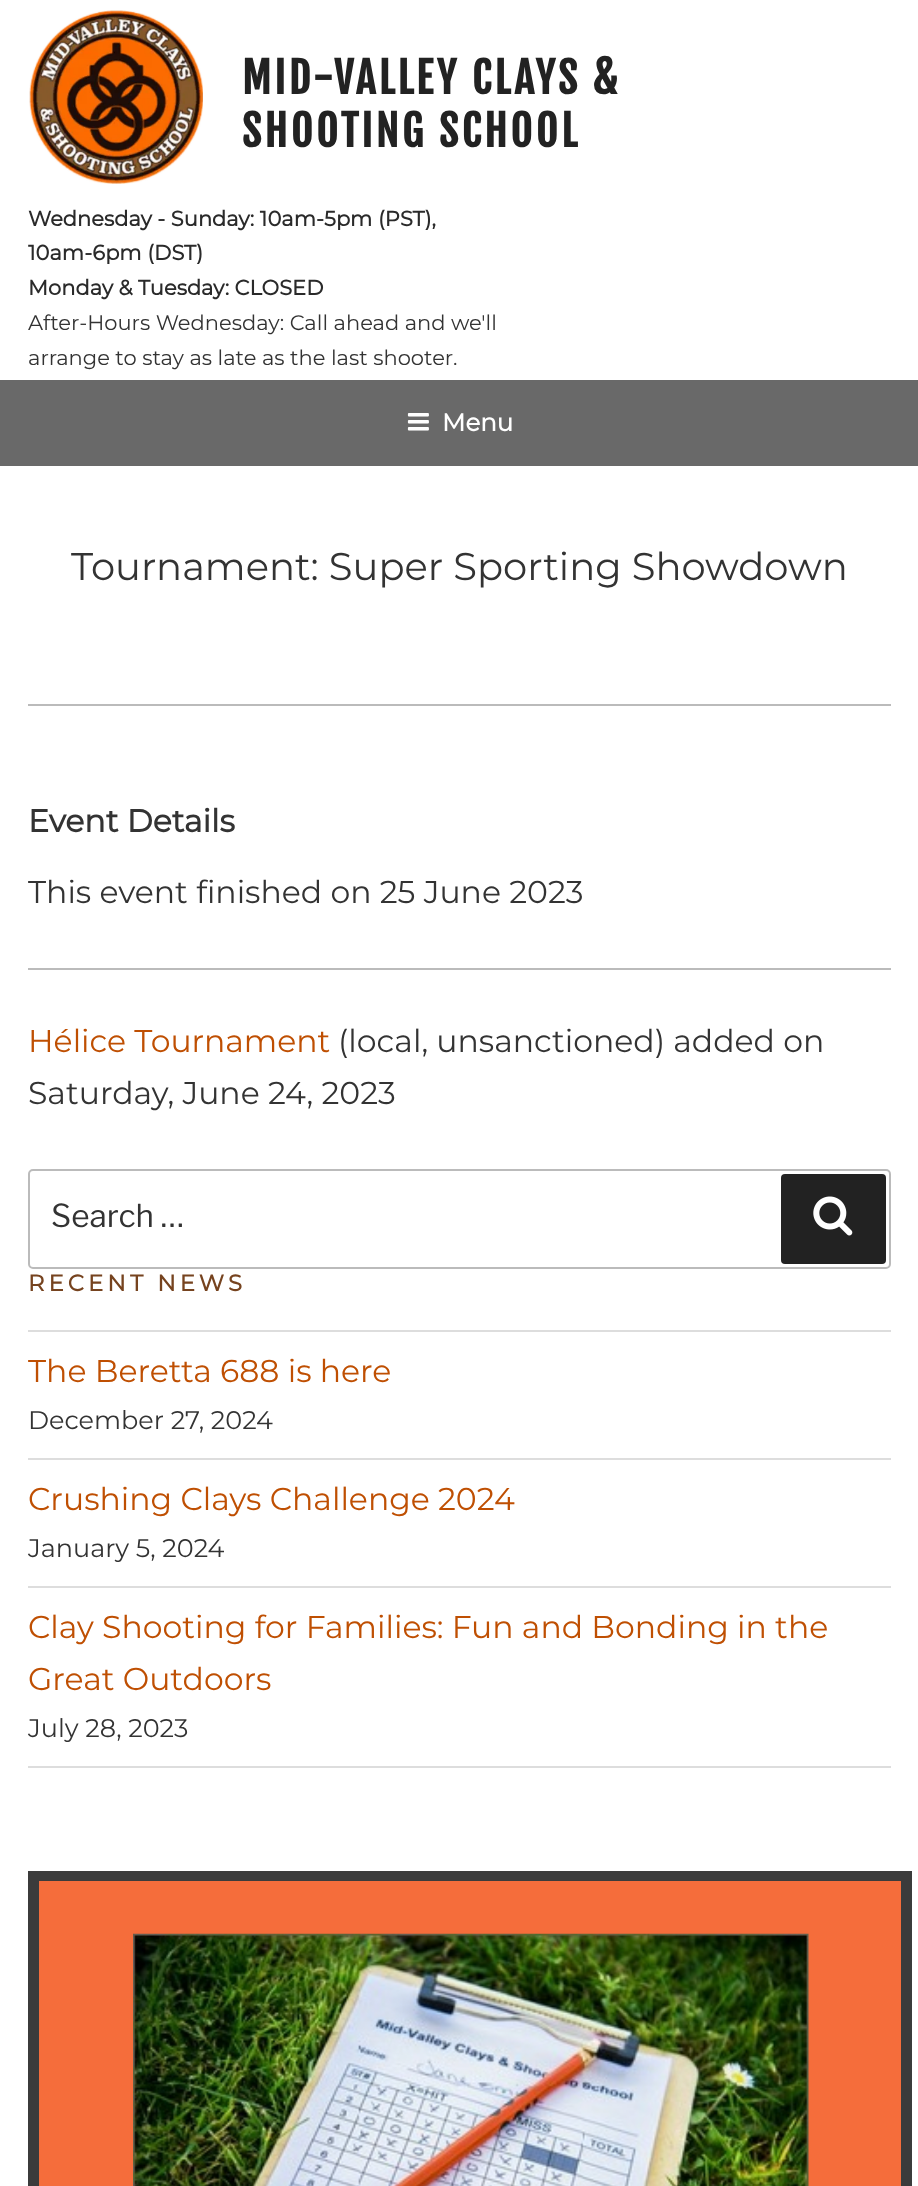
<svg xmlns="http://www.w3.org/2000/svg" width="918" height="2186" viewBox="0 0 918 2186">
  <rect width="100%" height="100%" fill="#fff"/>
  <image x="29" y="10" width="174" height="174" href="img/1.png"/>
  <path d="M0 380h918v86H0z" fill="#696969"/>
  <image x="407" y="413" width="22" height="18" href="img/2.png"/>
  <path d="M28 704h863v2H28z" fill="#bbb"/>
  <path d="M28 968h863v2H28z" fill="#bbb"/>
  <rect x="29" y="1170" width="861" height="98" rx="4" fill="none" stroke="#bbb" stroke-width="2"/>
  <rect x="781" y="1174" width="105" height="90" rx="4" fill="#222"/>
  <image x="813" y="1196" width="40" height="40" href="img/3.png"/>
  <path d="M28 1330h863v2H28z" fill="#ddd"/>
  <path d="M28 1458h863v2H28z" fill="#ddd"/>
  <path d="M28 1586h863v2H28z" fill="#ddd"/>
  <path d="M28 1766h863v2H28z" fill="#ddd"/>
  <path d="M33.5 1876.5h873v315H33.5z" fill="none" stroke="#3b3b3b" stroke-width="11"/>
  <path d="M39 1881h862v305H39z" fill="#f56d3b"/>
  <image x="133" y="1933" width="676" height="253" href="img/4.png"/>
  <g font-family="Fjalla One" font-size="42" font-weight="bold" letter-spacing="3.4" fill="#222">
    <text x="242" y="94">MID-VALLEY CLAYS &amp;</text>
    <text x="242" y="147">SHOOTING SCHOOL</text>
  </g>
  <g font-family="Montserrat" font-size="21" font-weight="bold" fill="#2a2a2a">
    <text x="28" y="226">Wednesday - Sunday: 10am-5pm (PST),</text>
    <text x="28" y="260">10am-6pm (DST)</text>
    <text x="28" y="295">Monday &amp; Tuesday: CLOSED</text>
  </g>
  <g font-family="Montserrat" font-size="21" font-weight="100" fill="#333">
    <text x="28" y="330">After-Hours Wednesday: Call ahead and we'll</text>
    <text x="28" y="365">arrange to stay as late as the last shooter.</text>
  </g>
  <text x="442" y="431" font-family="Montserrat" font-size="24.5" font-weight="bold" fill="#fff">Menu</text>
  <text x="71" y="580" font-family="Montserrat" font-size="38.5" font-weight="100" fill="#333">Tournament: Super Sporting Showdown</text>
  <text x="28" y="832" font-family="Montserrat" font-size="31.5" font-weight="bold" fill="#333">Event Details</text>
  <text x="28" y="903" font-family="Montserrat" font-size="31.5" font-weight="100" fill="#333">This event finished on 25 June 2023</text>
  <text x="28" y="1052" font-family="Montserrat" font-size="31.5" font-weight="100" fill="#bf4f02">Hélice Tournament</text>
  <g font-family="Montserrat" font-size="31.5" font-weight="100" fill="#333">
    <text x="338" y="1052">(local, unsanctioned) added on</text>
    <text x="28" y="1104">Saturday, June 24, 2023</text>
  </g>
  <text x="51" y="1227" font-family="Libre Franklin" font-size="31.5" font-weight="100" fill="#333">Search …</text>
  <text x="28" y="1291" font-family="Montserrat" font-size="22.75" font-weight="bold" letter-spacing="4.1" fill="#76431f">RECENT NEWS</text>
  <text x="28" y="1382" font-family="Montserrat" font-size="31.5" font-weight="100" fill="#bf4f02">The Beretta 688 is here</text>
  <text x="28" y="1429" font-family="Montserrat" font-size="25.5" font-weight="100" fill="#333">December 27, 2024</text>
  <text x="28" y="1510" font-family="Montserrat" font-size="31.5" font-weight="100" fill="#bf4f02">Crushing Clays Challenge 2024</text>
  <text x="28" y="1557" font-family="Montserrat" font-size="25.5" font-weight="100" fill="#333">January 5, 2024</text>
  <g font-family="Montserrat" font-size="31.5" font-weight="100" fill="#bf4f02">
    <text x="28" y="1638">Clay Shooting for Families: Fun and Bonding in the</text>
    <text x="28" y="1690">Great Outdoors</text>
  </g>
  <text x="28" y="1737" font-family="Montserrat" font-size="25.5" font-weight="100" fill="#333">July 28, 2023</text>
</svg>
